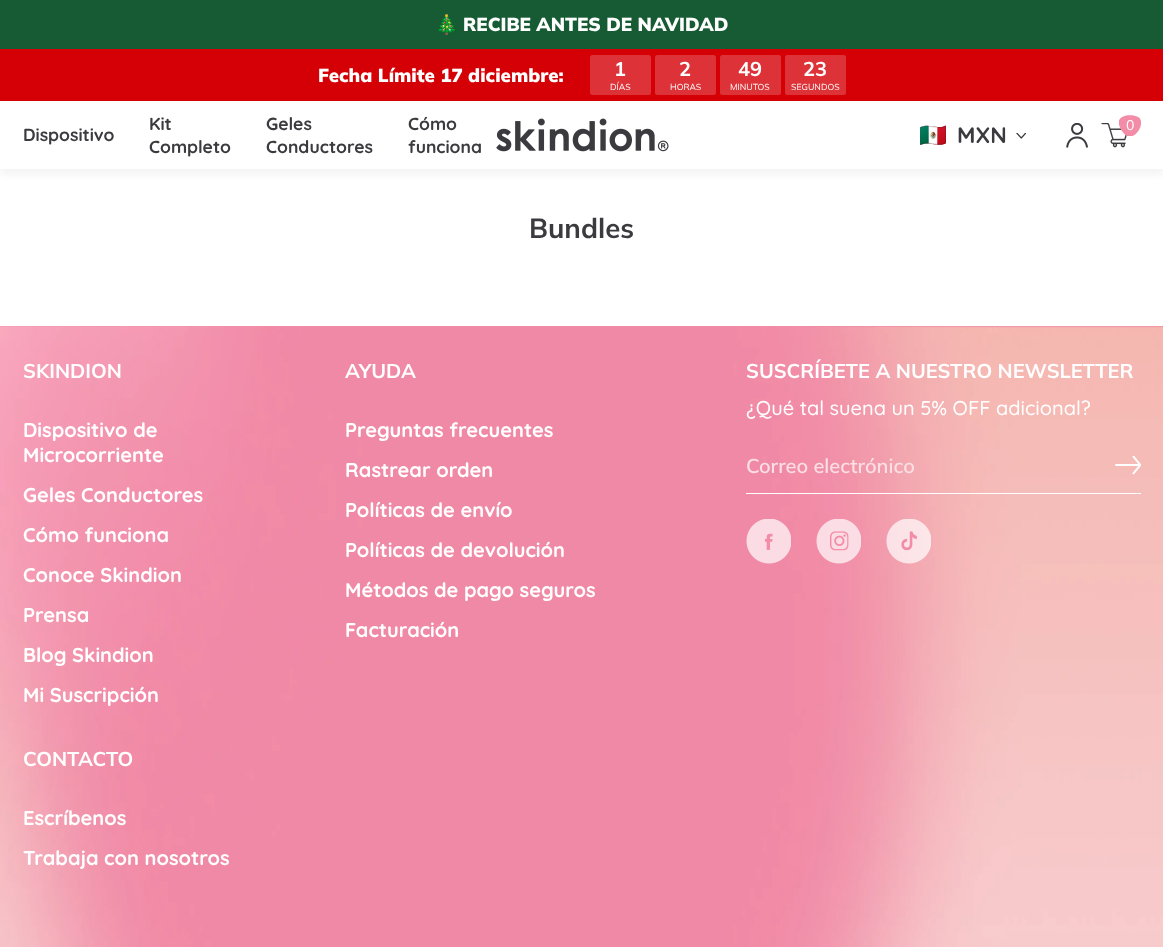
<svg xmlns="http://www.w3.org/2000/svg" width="1163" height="947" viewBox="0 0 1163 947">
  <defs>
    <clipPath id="clip1"><path d="M1119 115h22v21H1119z"/></clipPath>
  </defs>
  <rect width="100%" height="100%" fill="#fff"/>
  <path d="M0 0h1163v49H0z" fill="#165b33"/>
  <path d="M0 106h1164v68H0z" fill="#0000000d" filter="blur(4.5px)"/>
  <path d="M0 49h1163v52H0z" fill="#d40006"/>
  <rect x="590" y="55" width="61" height="40" rx="2.5" fill="#dd3338"/>
  <rect x="655" y="55" width="61" height="40" rx="2.5" fill="#dd3338"/>
  <rect x="720" y="55" width="61" height="40" rx="2.5" fill="#dd3338"/>
  <rect x="785" y="55" width="61" height="40" rx="2.5" fill="#dd3338"/>
  <path d="M0 102h1163v67H0z" fill="#fff"/>
  <image x="496" y="118" width="173" height="34" href="img/1.png"/>
  <image x="1016" y="133" width="10" height="6" href="img/2.png"/>
  <image x="1066" y="123" width="22" height="25" href="img/3.png"/>
  <image x="1101" y="123" width="26" height="25" href="img/4.png"/>
  <g clip-path="url(#clip1)">
    <path d="M1137 116.5C1132 114.5 1121.5 114 1119 120.5C1117.5 125 1122.5 134 1127 136C1137 140 1147 120 1137 116.5Z" fill="#f38da7"/>
  </g>
  <path d="M0 326h1163v2H0z" fill="#f38da7"/>
  <image x="0" y="326" width="1163" height="621" href="img/5.png"/>
  <path d="M746 493h395v1H746z" fill="#fff"/>
  <image x="1115" y="456" width="26" height="19" href="img/6.png"/>
  <image x="746" y="519" width="45" height="45" href="img/7.png"/>
  <image x="816" y="519" width="45" height="45" href="img/8.png"/>
  <image x="886" y="519" width="45" height="45" href="img/9.png"/>
  <text x="435" y="31" font-family="Noto Color Emoji" font-size="18.75" font-weight="bold" fill="#fff">🎄</text>
  <g font-family="Mulish" font-size="18.75" font-weight="900" fill="#fff">
    <text x="463" y="31">RECIBE ANTES DE NAVIDAD</text>
    <text x="318" y="82">Fecha Límite 17 diciembre:</text>
  </g>
  <text x="614" y="76" font-family="Mulish" font-size="20" font-weight="bold" fill="#fff">1</text>
  <text x="610" y="90" font-family="Mulish" font-size="8.75" fill="#fff">DÍAS</text>
  <text x="679" y="76" font-family="Mulish" font-size="20" font-weight="bold" fill="#fff">2</text>
  <text x="670" y="90" font-family="Mulish" font-size="8.75" fill="#fff">HORAS</text>
  <text x="738" y="76" font-family="Mulish" font-size="20" font-weight="bold" fill="#fff">49</text>
  <text x="730" y="90" font-family="Mulish" font-size="8.75" fill="#fff">MINUTOS</text>
  <text x="803" y="76" font-family="Mulish" font-size="20" font-weight="bold" fill="#fff">23</text>
  <text x="791" y="90" font-family="Mulish" font-size="8.75" fill="#fff">SEGUNDOS</text>
  <g font-family="Quicksand" font-size="17.5" font-weight="bold" fill="#3a3a3f">
    <text x="23" y="141">Dispositivo</text>
    <text x="149" y="130">Kit</text>
    <text x="149" y="153">Completo</text>
    <text x="266" y="130">Geles</text>
    <text x="266" y="153">Conductores</text>
    <text x="408" y="130">Cómo</text>
    <text x="408" y="153">funciona</text>
  </g>
  <text x="919" y="143" font-family="Noto Color Emoji" font-size="22.5" font-weight="bold" fill="#3a3a3f">🇲🇽</text>
  <text x="957" y="143" font-family="Quicksand" font-size="22.5" font-weight="bold" fill="#3a3a3f">MXN</text>
  <text x="1126" y="130" font-family="Mulish" font-size="14" fill="#fff">0</text>
  <text x="529" y="238" font-family="Mulish" font-size="27.5" font-weight="bold" fill="#3a3a3f">Bundles</text>
  <text x="23" y="378" font-family="Mulish" font-size="20" font-weight="bold" fill="#fff">SKINDION</text>
  <g font-family="Quicksand" font-size="20" font-weight="bold" fill="#fff">
    <text x="23" y="437">Dispositivo de</text>
    <text x="23" y="462">Microcorriente</text>
    <text x="23" y="502">Geles Conductores</text>
    <text x="23" y="542">Cómo funciona</text>
    <text x="23" y="582">Conoce Skindion</text>
    <text x="23" y="622">Prensa</text>
    <text x="23" y="662">Blog Skindion</text>
    <text x="23" y="702">Mi Suscripción</text>
  </g>
  <text x="345" y="378" font-family="Mulish" font-size="20" font-weight="bold" fill="#fff">AYUDA</text>
  <g font-family="Quicksand" font-size="20" font-weight="bold" fill="#fff">
    <text x="345" y="437">Preguntas frecuentes</text>
    <text x="345" y="477">Rastrear orden</text>
    <text x="345" y="517">Políticas de envío</text>
    <text x="345" y="557">Políticas de devolución</text>
    <text x="345" y="597">Métodos de pago seguros</text>
    <text x="345" y="637">Facturación</text>
  </g>
  <text x="23" y="766" font-family="Mulish" font-size="20" font-weight="bold" fill="#fff">CONTACTO</text>
  <g font-family="Quicksand" font-size="20" font-weight="bold" fill="#fff">
    <text x="23" y="825">Escríbenos</text>
    <text x="23" y="865">Trabaja con nosotros</text>
  </g>
  <text x="746" y="378" font-family="Mulish" font-size="20" font-weight="bold" fill="#fff">SUSCRÍBETE A NUESTRO NEWSLETTER</text>
  <text x="746" y="415" font-family="Quicksand" font-size="20" font-weight="500" fill="#fff">¿Qué tal suena un 5% OFF adicional?</text>
  <text x="746" y="473" font-family="Mulish" font-size="20" font-weight="600" fill="#fbdfe5">Correo electrónico</text>
</svg>
